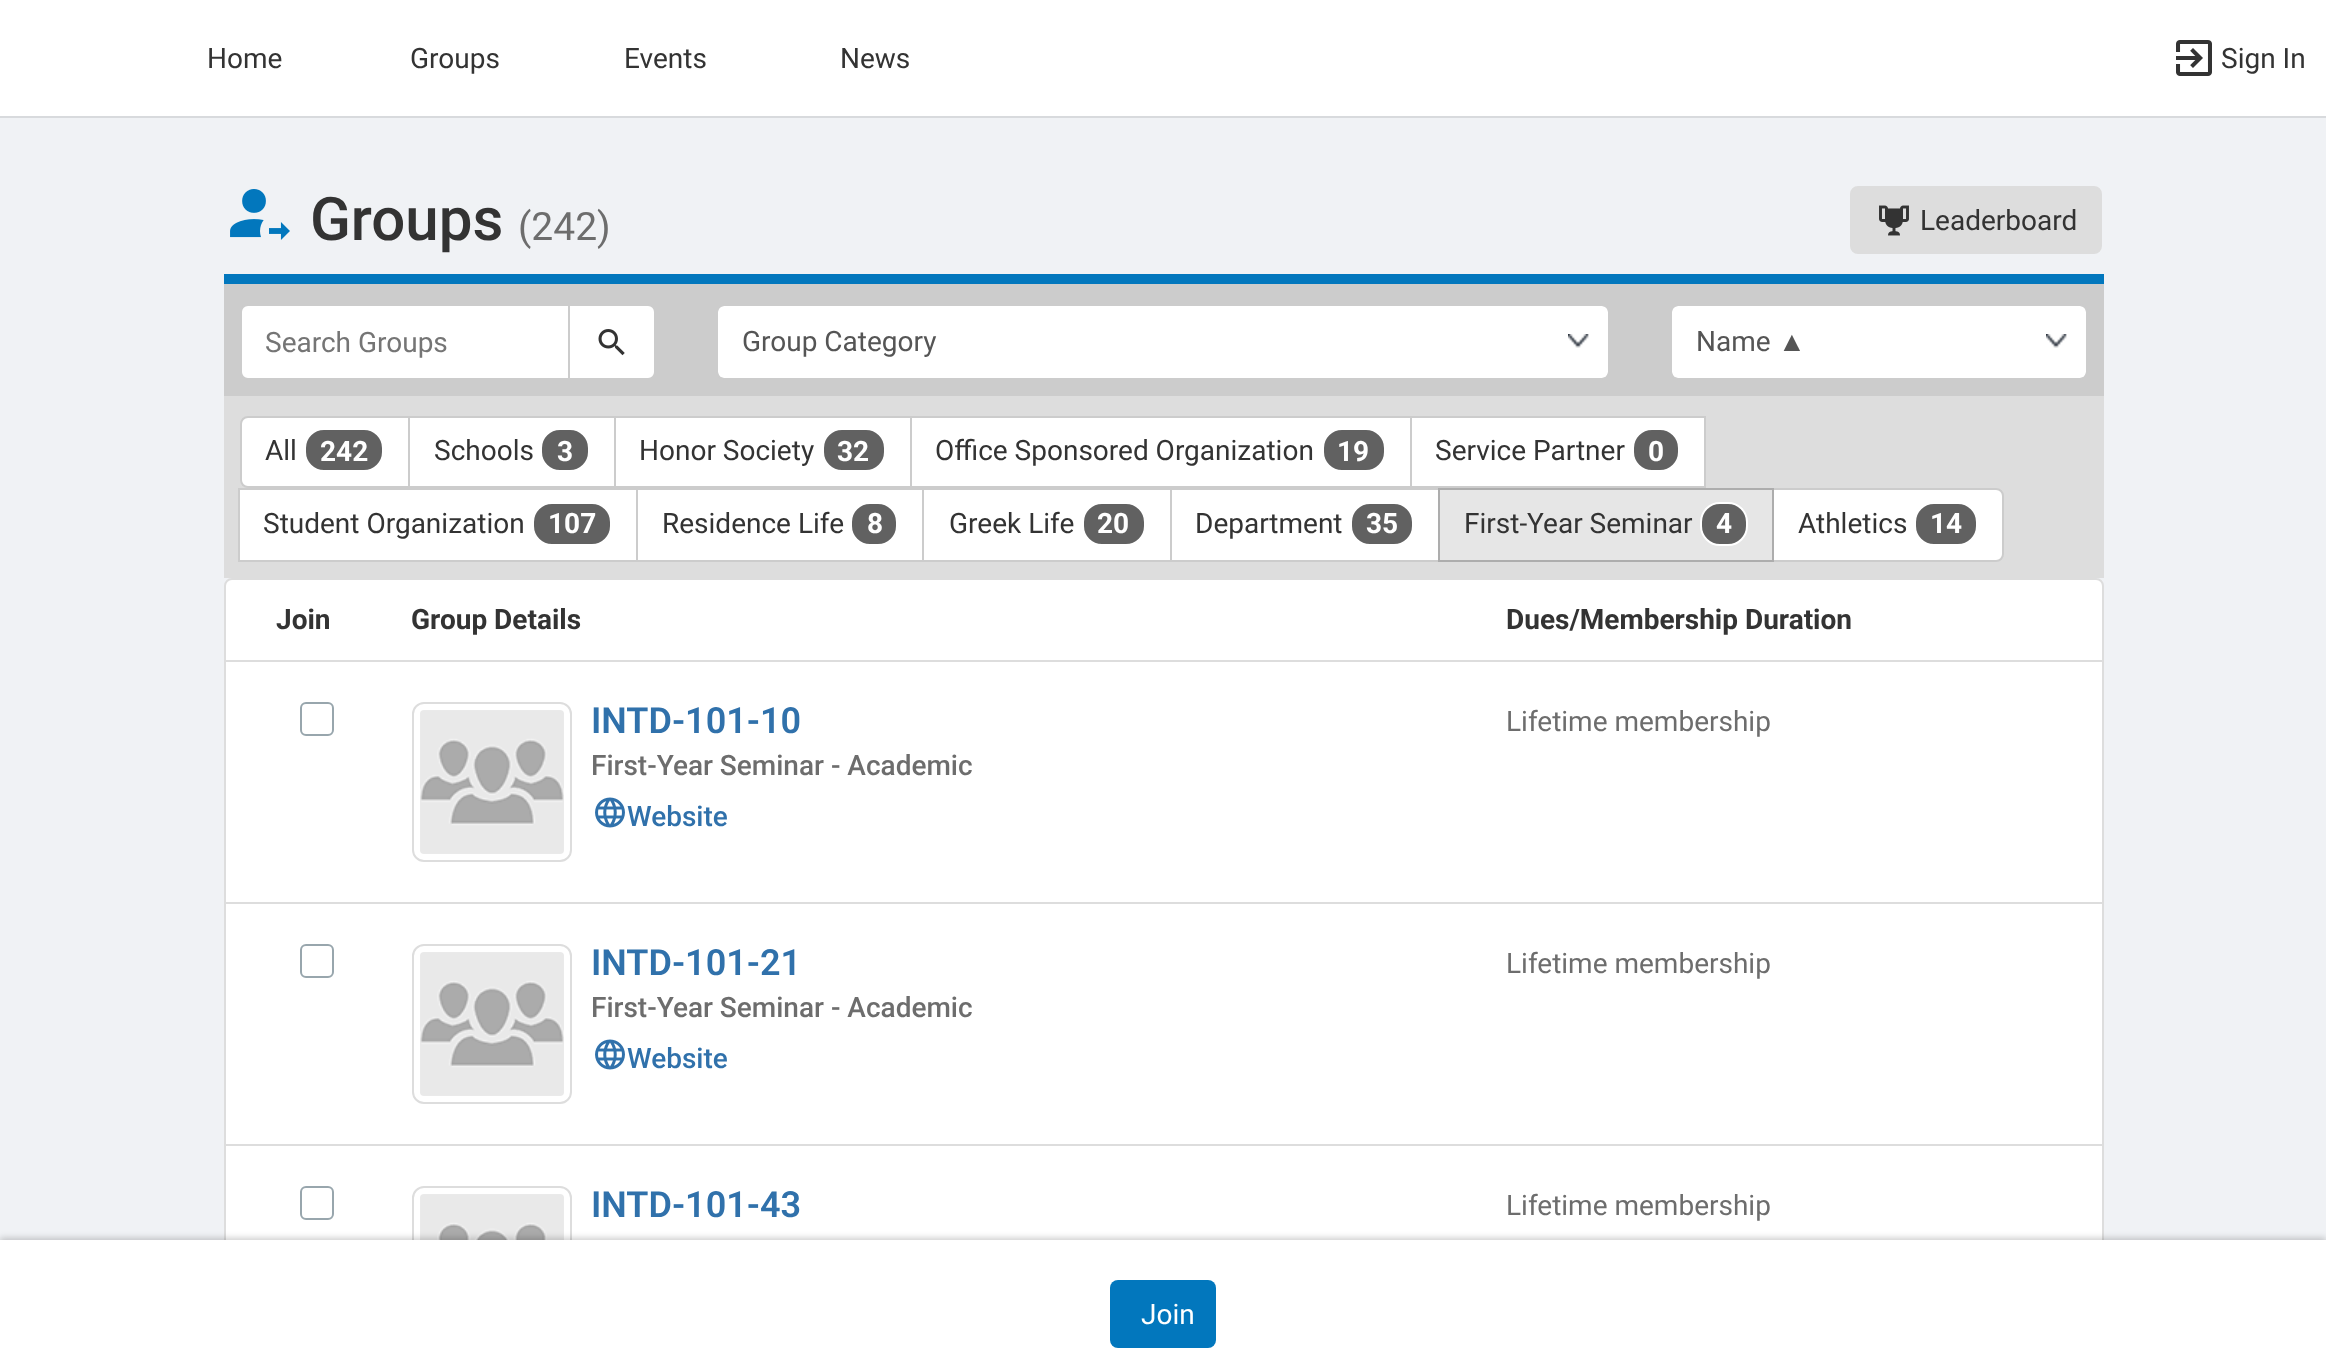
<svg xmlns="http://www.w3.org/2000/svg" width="2326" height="1367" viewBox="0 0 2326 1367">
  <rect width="100%" height="100%" fill="#f0f2f5"/>
  <path d="M0 0h2326v116H0z" fill="#fff"/>
  <path d="M0 116h2326v2H0z" fill="#d8dadd"/>
  <image x="2176" y="40" width="36" height="36" href="img/1.png"/>
  <image x="230" y="189" width="60" height="51" href="img/2.png"/>
  <rect x="1851" y="187" width="250" height="66" rx="7" fill="#ddd" stroke="#ddd" stroke-width="2"/>
  <image x="1879" y="205" width="30" height="31" href="img/3.png"/>
  <path d="M224 284h1880v112H224z" fill="#ccc"/>
  <path d="M224 274h1880v10H224z" fill="#0277bd"/>
  <path d="M248 305H569V379H248C244 379 241 376 241 372V312C241 308 244 305 248 305Z" fill="#fff" stroke="#ccc" stroke-width="2"/>
  <path d="M569 305H648C652 305 655 308 655 312V372C655 376 652 379 648 379H569Z" fill="#fff" stroke="#ccc" stroke-width="2"/>
  <image x="598" y="329" width="27" height="27" href="img/4.png"/>
  <rect x="718" y="306" width="890" height="72" rx="6" fill="#fff"/>
  <image x="1568" y="334" width="21" height="14" href="img/5.png"/>
  <rect x="717" y="305" width="892" height="74" rx="7" fill="none" stroke="#ccc" stroke-width="2"/>
  <rect x="1672" y="306" width="414" height="72" rx="6" fill="#fff"/>
  <image x="2046" y="334" width="21" height="14" href="img/5.png"/>
  <rect x="1671" y="305" width="416" height="74" rx="7" fill="none" stroke="#ccc" stroke-width="2"/>
  <path d="M224 396h1880v182H224z" fill="#ddd"/>
  <path d="M248 417H409V487H248C244 487 241 484 241 480V424C241 420 244 417 248 417Z" fill="#fff" stroke="#ccc" stroke-width="2"/>
  <rect x="305" y="429" width="78" height="42" rx="19" fill="#616161" stroke="#fff" stroke-width="2"/>
  <path d="M409 417h206v70H409z" fill="#fff" stroke="#ccc" stroke-width="2"/>
  <rect x="541" y="429" width="48" height="42" rx="19" fill="#616161" stroke="#fff" stroke-width="2"/>
  <path d="M615 417h296v70H615z" fill="#fff" stroke="#ccc" stroke-width="2"/>
  <rect x="823" y="429" width="62" height="42" rx="19" fill="#616161" stroke="#fff" stroke-width="2"/>
  <path d="M911 417h500v70H911z" fill="#fff" stroke="#ccc" stroke-width="2"/>
  <rect x="1323" y="429" width="62" height="42" rx="19" fill="#616161" stroke="#fff" stroke-width="2"/>
  <path d="M1411 417h294v70H1411z" fill="#fff" stroke="#ccc" stroke-width="2"/>
  <rect x="1633" y="429" width="46" height="42" rx="19" fill="#616161" stroke="#fff" stroke-width="2"/>
  <path d="M239 489h398v72H239z" fill="#fff" stroke="#ccc" stroke-width="2"/>
  <rect x="533" y="503" width="78" height="42" rx="19" fill="#616161" stroke="#fff" stroke-width="2"/>
  <path d="M637 489h286v72H637z" fill="#fff" stroke="#ccc" stroke-width="2"/>
  <rect x="851" y="503" width="46" height="42" rx="19" fill="#616161" stroke="#fff" stroke-width="2"/>
  <path d="M923 489h248v72H923z" fill="#fff" stroke="#ccc" stroke-width="2"/>
  <rect x="1083" y="503" width="62" height="42" rx="19" fill="#616161" stroke="#fff" stroke-width="2"/>
  <path d="M1171 489h268v72H1171z" fill="#fff" stroke="#ccc" stroke-width="2"/>
  <rect x="1351" y="503" width="62" height="42" rx="19" fill="#616161" stroke="#fff" stroke-width="2"/>
  <path d="M1773 489H1996C2000 489 2003 492 2003 496V554C2003 558 2000 561 1996 561H1773Z" fill="#fff" stroke="#ccc" stroke-width="2"/>
  <path d="M1439 489h334v72H1439z" fill="#e6e6e6" stroke="#adadad" stroke-width="2"/>
  <rect x="1701" y="503" width="46" height="42" rx="19" fill="#616161" stroke="#fff" stroke-width="2"/>
  <rect x="1915" y="503" width="62" height="42" rx="19" fill="#616161" stroke="#fff" stroke-width="2"/>
  <path d="M232 579H2096C2100 579 2103 582 2103 586V661H225V586C225 582 228 579 232 579Z" fill="#fff" stroke="#ddd" stroke-width="2"/>
  <path d="M225 661h1878v242H225z" fill="#fff" stroke="#ddd" stroke-width="2"/>
  <rect x="301" y="703" width="32" height="32" rx="5" fill="none" stroke="#98a6ad" stroke-width="2"/>
  <rect x="413" y="703" width="158" height="158" rx="11" fill="none" stroke="#ddd" stroke-width="2"/>
  <image x="420" y="710" width="144" height="144" href="img/6.png"/>
  <image x="595" y="797" width="30" height="31" href="img/7.png"/>
  <path d="M225 903h1878v242H225z" fill="#fff" stroke="#ddd" stroke-width="2"/>
  <rect x="301" y="945" width="32" height="32" rx="5" fill="none" stroke="#98a6ad" stroke-width="2"/>
  <rect x="413" y="945" width="158" height="158" rx="11" fill="none" stroke="#ddd" stroke-width="2"/>
  <image x="420" y="952" width="144" height="144" href="img/6.png"/>
  <image x="595" y="1039" width="30" height="31" href="img/7.png"/>
  <path d="M226 1146h1876v94H226z" fill="#fff"/>
  <path d="M225 1145h1878v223H225z" fill="none" stroke="#ddd" stroke-width="2"/>
  <rect x="301" y="1187" width="32" height="32" rx="5" fill="none" stroke="#98a6ad" stroke-width="2"/>
  <rect x="413" y="1187" width="158" height="158" rx="11" fill="none" stroke="#ddd" stroke-width="2"/>
  <image x="420" y="1194" width="144" height="46" href="img/8.png"/>
  <path d="M0 1238h2326v128H0z" fill="#00000033" filter="blur(3px)"/>
  <path d="M0 1240h2326v127H0z" fill="#fff"/>
  <rect x="1110" y="1280" width="106" height="68" rx="8" fill="#0277bd"/>
  <g font-family="Roboto" font-size="28" fill="#333">
    <text x="207" y="68">Home</text>
    <text x="410" y="68">Groups</text>
    <text x="624" y="68">Events</text>
    <text x="840" y="68">News</text>
    <text x="2221" y="68">Sign In</text>
  </g>
  <text x="310" y="240" font-family="Roboto" font-size="60" font-weight="500" fill="#333">Groups</text>
  <text x="518" y="240" font-family="Roboto" font-size="39" fill="#6d6d6d">(242)</text>
  <text x="1920" y="230" font-family="Roboto" font-size="28" fill="#333">Leaderboard</text>
  <text x="265" y="352" font-family="Roboto" font-size="28" fill="#757575">Search Groups</text>
  <g font-family="Roboto" font-size="28" fill="#555">
    <text x="742" y="351">Group Category</text>
    <text x="1696" y="351">Name</text>
  </g>
  <text x="1778" y="351" font-family="Liberation Sans" font-size="28" fill="#555">▲</text>
  <text x="265" y="460" font-family="Roboto" font-size="28" fill="#333">All</text>
  <text x="320" y="461" font-family="Roboto" font-size="28" font-weight="bold" fill="#fff">242</text>
  <text x="434" y="460" font-family="Roboto" font-size="28" fill="#333">Schools</text>
  <text x="557" y="461" font-family="Roboto" font-size="28" font-weight="bold" fill="#fff">3</text>
  <text x="639" y="460" font-family="Roboto" font-size="28" fill="#333">Honor Society</text>
  <text x="837" y="461" font-family="Roboto" font-size="28" font-weight="bold" fill="#fff">32</text>
  <text x="935" y="460" font-family="Roboto" font-size="28" fill="#333">Office Sponsored Organization</text>
  <text x="1337" y="461" font-family="Roboto" font-size="28" font-weight="bold" fill="#fff">19</text>
  <text x="1435" y="460" font-family="Roboto" font-size="28" fill="#333">Service Partner</text>
  <text x="1648" y="461" font-family="Roboto" font-size="28" font-weight="bold" fill="#fff">0</text>
  <text x="263" y="533" font-family="Roboto" font-size="28" fill="#333">Student Organization</text>
  <text x="548" y="533" font-family="Roboto" font-size="28" font-weight="bold" fill="#fff">107</text>
  <text x="662" y="533" font-family="Roboto" font-size="28" fill="#333">Residence Life</text>
  <text x="867" y="533" font-family="Roboto" font-size="28" font-weight="bold" fill="#fff">8</text>
  <text x="949" y="533" font-family="Roboto" font-size="28" fill="#333">Greek Life</text>
  <text x="1097" y="533" font-family="Roboto" font-size="28" font-weight="bold" fill="#fff">20</text>
  <text x="1195" y="533" font-family="Roboto" font-size="28" fill="#333">Department</text>
  <text x="1366" y="533" font-family="Roboto" font-size="28" font-weight="bold" fill="#fff">35</text>
  <text x="1464" y="533" font-family="Roboto" font-size="28" fill="#333">First-Year Seminar</text>
  <text x="1716" y="533" font-family="Roboto" font-size="28" font-weight="bold" fill="#fff">4</text>
  <text x="1798" y="533" font-family="Roboto" font-size="28" fill="#333">Athletics</text>
  <text x="1930" y="533" font-family="Roboto" font-size="28" font-weight="bold" fill="#fff">14</text>
  <g font-family="Roboto" font-size="28" font-weight="bold" fill="#333">
    <text x="276" y="629">Join</text>
    <text x="411" y="629">Group Details</text>
    <text x="1506" y="629">Dues/Membership Duration</text>
  </g>
  <text x="591" y="733" font-family="Roboto" font-size="36" font-weight="600" fill="#3071ab">INTD-101-10</text>
  <text x="591" y="775" font-family="Roboto" font-size="28" font-weight="500" fill="#6d6d6d">First-Year Seminar - Academic</text>
  <text x="627" y="826" font-family="Roboto" font-size="28" font-weight="500" fill="#3071ab">Website</text>
  <text x="1506" y="731" font-family="Roboto" font-size="28" fill="#6d6d6d">Lifetime membership</text>
  <text x="591" y="975" font-family="Roboto" font-size="36" font-weight="600" fill="#3071ab">INTD-101-21</text>
  <text x="591" y="1017" font-family="Roboto" font-size="28" font-weight="500" fill="#6d6d6d">First-Year Seminar - Academic</text>
  <text x="627" y="1068" font-family="Roboto" font-size="28" font-weight="500" fill="#3071ab">Website</text>
  <text x="1506" y="973" font-family="Roboto" font-size="28" fill="#6d6d6d">Lifetime membership</text>
  <text x="591" y="1217" font-family="Roboto" font-size="36" font-weight="600" fill="#3071ab">INTD-101-43</text>
  <text x="1506" y="1215" font-family="Roboto" font-size="28" fill="#6d6d6d">Lifetime membership</text>
  <text x="1141" y="1324" font-family="Roboto" font-size="28" fill="#fff">Join</text>
</svg>
